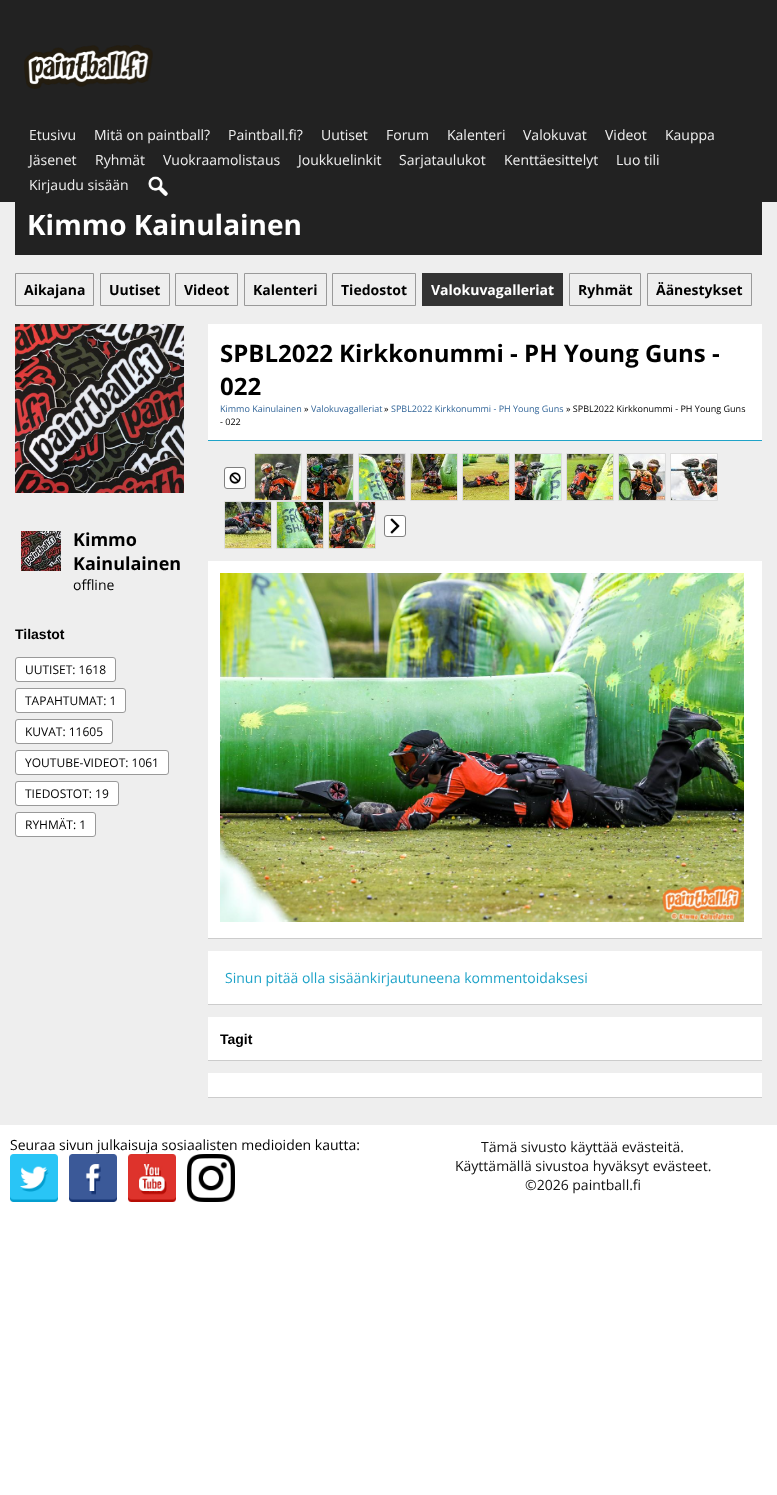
<svg xmlns="http://www.w3.org/2000/svg" width="777" height="1495" viewBox="0 0 777 1495">
  <rect width="100%" height="100%" fill="#fff"/>
  <path d="M0 0h777v202H0z" fill="#222"/>
  <image x="24" y="44" width="129" height="45" href="img/1.png"/>
  <image x="148" y="176" width="20" height="20" href="img/2.png"/>
  <path d="M0 202h777v923H0z" fill="#eee"/>
  <path d="M15 202h747v53H15z" fill="#222"/>
  <path d="M15.5 273.5h78v32H15.5z" fill="none" stroke="#999"/>
  <path d="M100.5 273.5h69v32H100.5z" fill="none" stroke="#999"/>
  <path d="M175.5 273.5h62v32H175.5z" fill="none" stroke="#999"/>
  <path d="M244.5 273.5h82v32H244.5z" fill="none" stroke="#999"/>
  <path d="M332.5 273.5h83v32H332.5z" fill="none" stroke="#999"/>
  <path d="M422 273h141v33H422z" fill="#333"/>
  <path d="M569.5 273.5h71v32H569.5z" fill="none" stroke="#999"/>
  <path d="M647.5 273.5h104v32H647.5z" fill="none" stroke="#999"/>
  <image x="15" y="324" width="169" height="169" href="img/3.png"/>
  <image x="21" y="531" width="40" height="40" href="img/4.png"/>
  <rect x="15.5" y="657.5" width="100" height="24" rx="2.5" fill="#fff" stroke="#999"/>
  <rect x="15.5" y="688.5" width="110" height="24" rx="2.5" fill="#fff" stroke="#999"/>
  <rect x="15.5" y="719.5" width="97" height="24" rx="2.5" fill="#fff" stroke="#999"/>
  <rect x="15.5" y="750.5" width="153" height="24" rx="2.5" fill="#fff" stroke="#999"/>
  <rect x="15.5" y="781.5" width="103" height="24" rx="2.5" fill="#fff" stroke="#999"/>
  <rect x="15.5" y="812.5" width="80" height="24" rx="2.5" fill="#fff" stroke="#999"/>
  <path d="M208 324h554v116H208z" fill="#fff"/>
  <path d="M208 440h554v1H208z" fill="#1fa3c8"/>
  <rect x="224.5" y="467.5" width="21" height="21" rx="2.5" fill="#fff" stroke="#7f7f7f"/>
  <image x="229" y="472" width="12" height="12" href="img/5.png"/>
  <path d="M254.5 453.5h47v47H254.5z" fill="none" stroke="#ddd"/>
  <image x="255" y="454" width="46" height="46" href="img/6.png"/>
  <path d="M306.5 453.5h47v47H306.5z" fill="none" stroke="#ddd"/>
  <image x="307" y="454" width="46" height="46" href="img/7.png"/>
  <path d="M358.5 453.5h47v47H358.5z" fill="none" stroke="#ddd"/>
  <image x="359" y="454" width="46" height="46" href="img/8.png"/>
  <path d="M410.5 453.5h47v47H410.5z" fill="none" stroke="#ddd"/>
  <image x="411" y="454" width="46" height="46" href="img/9.png"/>
  <path d="M462.5 453.5h47v47H462.5z" fill="none" stroke="#ddd"/>
  <image x="463" y="454" width="46" height="46" href="img/10.png"/>
  <path d="M514.5 453.5h47v47H514.5z" fill="none" stroke="#ddd"/>
  <image x="515" y="454" width="46" height="46" href="img/11.png"/>
  <path d="M566.5 453.5h47v47H566.5z" fill="none" stroke="#ddd"/>
  <image x="567" y="454" width="46" height="46" href="img/12.png"/>
  <path d="M618.5 453.5h47v47H618.5z" fill="none" stroke="#ddd"/>
  <image x="619" y="454" width="46" height="46" href="img/13.png"/>
  <path d="M670.5 453.5h47v47H670.5z" fill="none" stroke="#ddd"/>
  <image x="671" y="454" width="46" height="46" href="img/14.png"/>
  <path d="M224.5 501.5h47v47H224.5z" fill="none" stroke="#ddd"/>
  <image x="225" y="502" width="46" height="46" href="img/15.png"/>
  <path d="M276.5 501.5h47v47H276.5z" fill="none" stroke="#ddd"/>
  <image x="277" y="502" width="46" height="46" href="img/16.png"/>
  <path d="M328.5 501.5h47v47H328.5z" fill="none" stroke="#ddd"/>
  <image x="329" y="502" width="46" height="46" href="img/17.png"/>
  <rect x="384.5" y="515.5" width="21" height="21" rx="2.5" fill="#fff" stroke="#7f7f7f"/>
  <image x="390" y="518" width="10" height="16" href="img/18.png"/>
  <path d="M208 561h554v377H208z" fill="#fff"/>
  <path d="M208 938h554v1H208z" fill="#ccc"/>
  <image x="220" y="573" width="524" height="349" href="img/19.png"/>
  <path d="M208 951h554v53H208z" fill="#fff"/>
  <path d="M208 1004h554v1H208z" fill="#ccc"/>
  <path d="M208 1017h554v43H208z" fill="#fff"/>
  <path d="M208 1060h554v1H208z" fill="#ccc"/>
  <path d="M208 1073h554v24H208z" fill="#fff"/>
  <path d="M208 1097h554v1H208z" fill="#ccc"/>
  <image x="10" y="1154" width="48" height="48" href="img/20.png"/>
  <image x="69" y="1154" width="48" height="48" href="img/21.png"/>
  <image x="128" y="1154" width="48" height="48" href="img/22.png"/>
  <image x="187" y="1154" width="48" height="48" href="img/23.png"/>
  <g font-family="Open Sans" font-size="14" fill="#eee">
    <text x="29" y="140">Etusivu</text>
    <text x="94" y="140">Mitä on paintball?</text>
    <text x="228" y="140">Paintball.fi?</text>
    <text x="321" y="140">Uutiset</text>
    <text x="386" y="140">Forum</text>
    <text x="447" y="140">Kalenteri</text>
    <text x="523" y="140">Valokuvat</text>
    <text x="605" y="140">Videot</text>
    <text x="665" y="140">Kauppa</text>
    <text x="29" y="165">Jäsenet</text>
    <text x="95" y="165">Ryhmät</text>
    <text x="163" y="165">Vuokraamolistaus</text>
    <text x="298" y="165">Joukkuelinkit</text>
    <text x="399" y="165">Sarjataulukot</text>
    <text x="504" y="165">Kenttäesittelyt</text>
    <text x="616" y="165">Luo tili</text>
    <text x="29" y="190">Kirjaudu sisään</text>
  </g>
  <text x="27" y="235" font-family="Open Sans" font-size="28" font-weight="bold" fill="#fff">Kimmo Kainulainen</text>
  <g font-family="Open Sans" font-size="14" font-weight="bold" fill="#000">
    <text x="24" y="295">Aikajana</text>
    <text x="109" y="295">Uutiset</text>
    <text x="184" y="295">Videot</text>
    <text x="253" y="295">Kalenteri</text>
    <text x="341" y="295">Tiedostot</text>
  </g>
  <text x="431" y="295" font-family="Open Sans" font-size="14" font-weight="bold" fill="#fff">Valokuvagalleriat</text>
  <g font-family="Open Sans" font-size="14" font-weight="bold" fill="#000">
    <text x="578" y="295">Ryhmät</text>
    <text x="656" y="295">Äänestykset</text>
  </g>
  <g font-family="Open Sans" font-size="18" font-weight="bold" fill="#000">
    <text x="73" y="546">Kimmo</text>
    <text x="73" y="570">Kainulainen</text>
  </g>
  <text x="73" y="590" font-family="Open Sans" font-size="14" fill="#000">offline</text>
  <text x="15" y="639" font-family="Liberation Sans" font-size="14" font-weight="bold" fill="#000">Tilastot</text>
  <g font-family="Open Sans" font-size="12" fill="#000">
    <text x="25" y="674">UUTISET: 1618</text>
    <text x="25" y="705">TAPAHTUMAT: 1</text>
    <text x="25" y="736">KUVAT: 11605</text>
    <text x="25" y="767">YOUTUBE-VIDEOT: 1061</text>
    <text x="25" y="798">TIEDOSTOT: 19</text>
    <text x="25" y="829">RYHMÄT: 1</text>
  </g>
  <g font-family="Open Sans" font-size="24" font-weight="bold" fill="#000">
    <text x="220" y="362">SPBL2022 Kirkkonummi - PH Young Guns -</text>
    <text x="220" y="395">022</text>
  </g>
  <text x="220" y="412" font-family="Open Sans" font-size="9" fill="#369">Kimmo Kainulainen</text>
  <text x="304" y="412" font-family="Open Sans" font-size="9" fill="#000">»</text>
  <text x="311" y="412" font-family="Open Sans" font-size="9" fill="#369">Valokuvagalleriat</text>
  <text x="384" y="412" font-family="Open Sans" font-size="9" fill="#000">»</text>
  <text x="391" y="412" font-family="Open Sans" font-size="9" fill="#369">SPBL2022 Kirkkonummi - PH Young Guns</text>
  <g font-family="Open Sans" font-size="9" fill="#000">
    <text x="566" y="412">» SPBL2022 Kirkkonummi - PH Young Guns</text>
    <text x="220" y="425">- 022</text>
  </g>
  <text x="225" y="983" font-family="Open Sans" font-size="14" fill="#1fa3c8">Sinun pitää olla sisäänkirjautuneena kommentoidaksesi</text>
  <text x="220" y="1044" font-family="Liberation Sans" font-size="14" font-weight="bold" fill="#000">Tagit</text>
  <text x="10" y="1150" font-family="Open Sans" font-size="14" fill="#000">Seuraa sivun julkaisuja sosiaalisten medioiden kautta:</text>
  <g font-family="Open Sans" font-size="14" fill="#111">
    <text x="481" y="1152">Tämä sivusto käyttää evästeitä.</text>
    <text x="455" y="1171">Käyttämällä sivustoa hyväksyt evästeet.</text>
    <text x="525" y="1190">©2026 paintball.fi</text>
  </g>
</svg>
